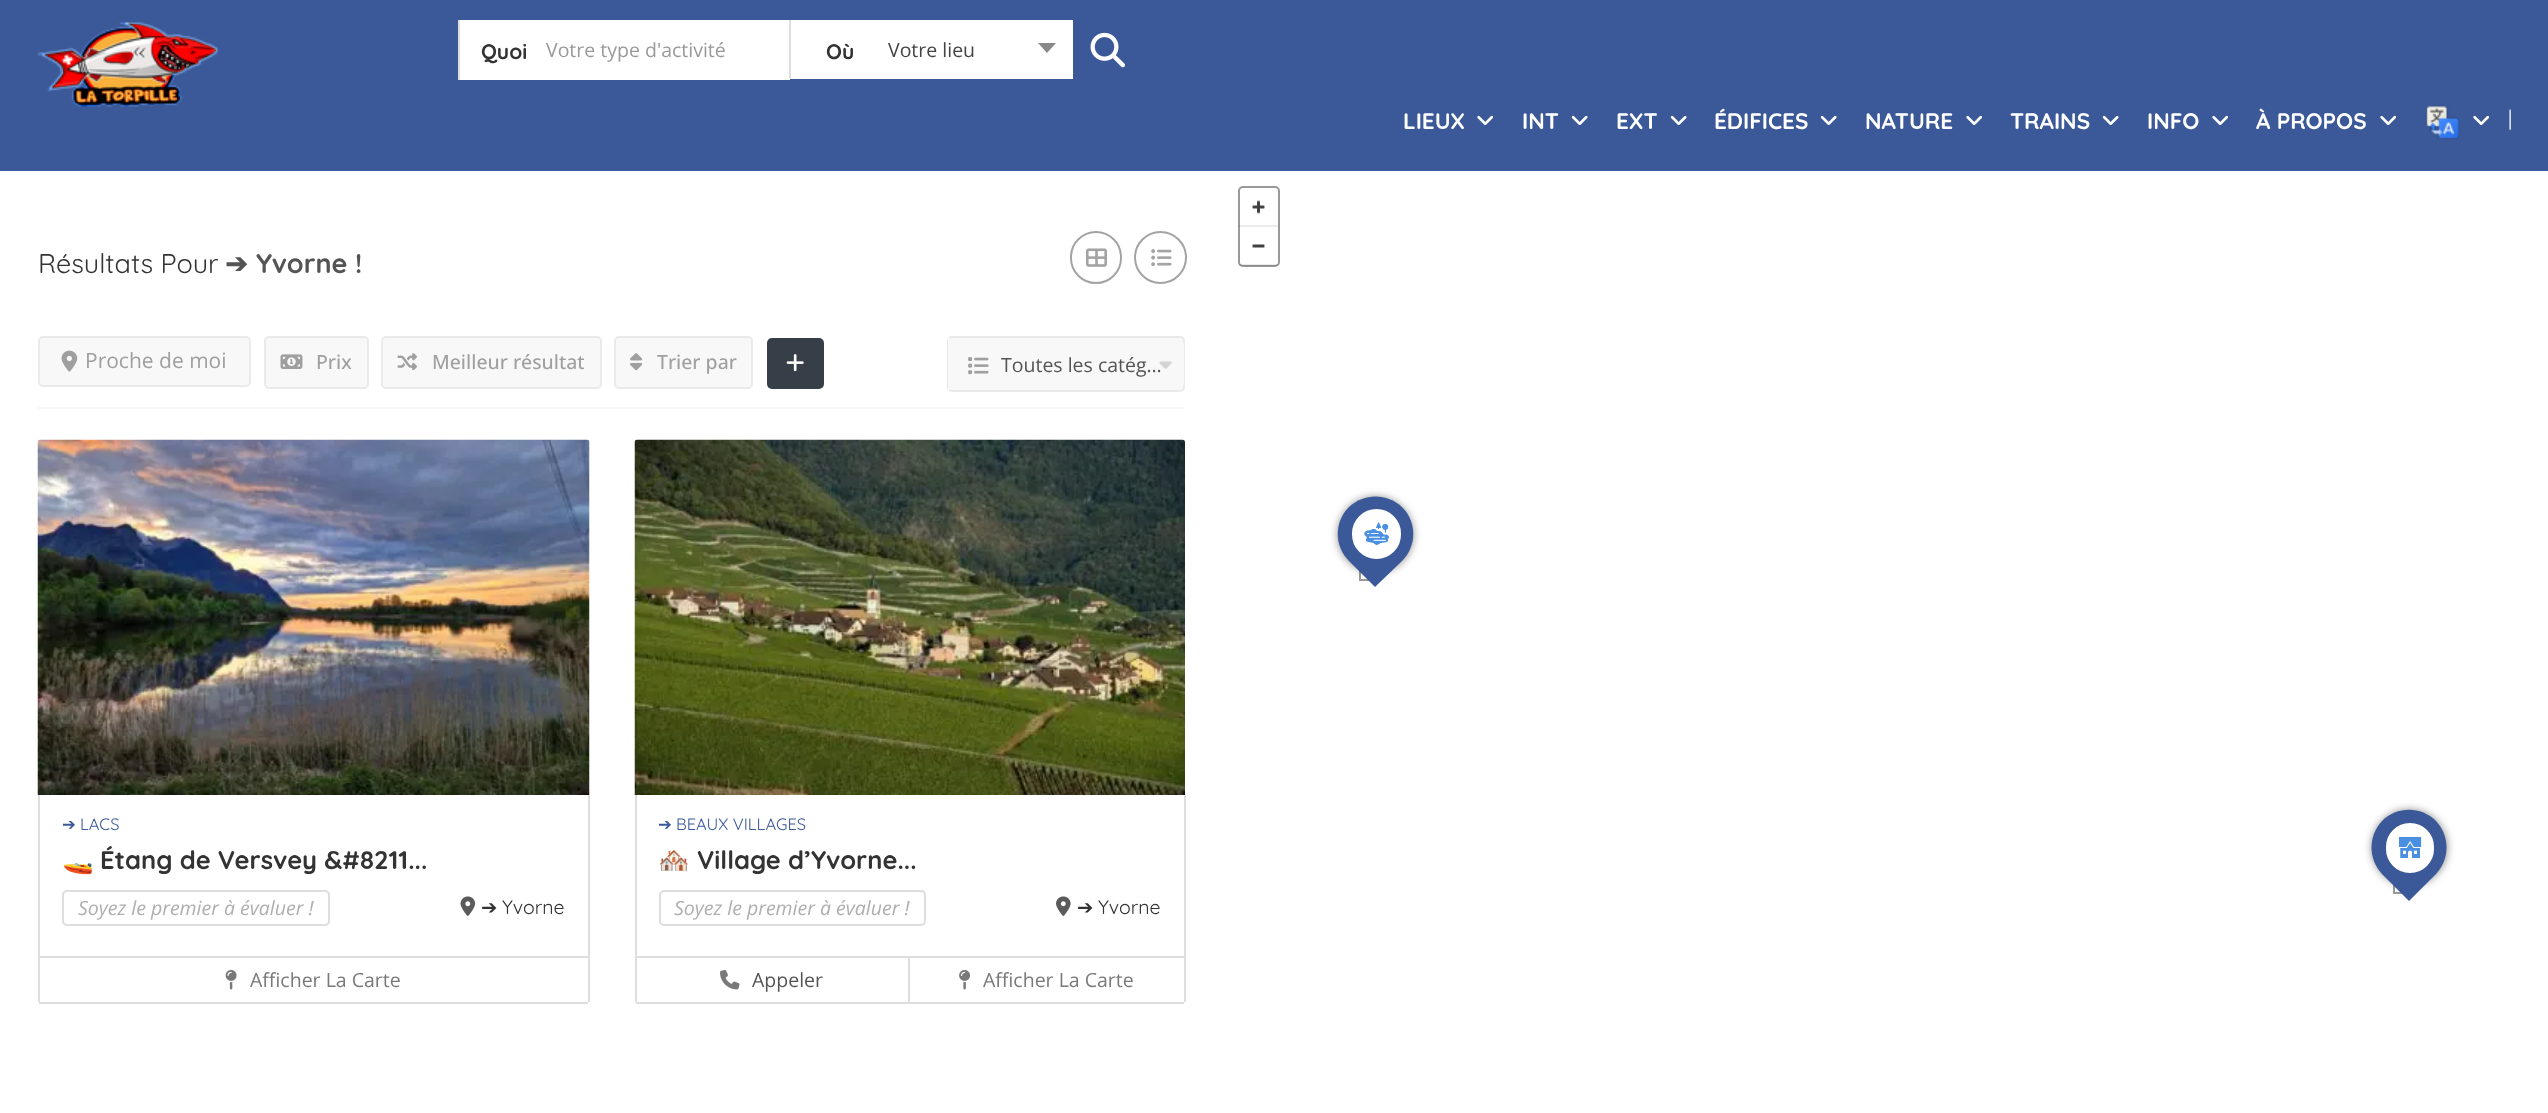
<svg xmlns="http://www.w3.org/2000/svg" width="2548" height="1113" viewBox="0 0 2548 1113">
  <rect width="100%" height="100%" fill="#fff"/>
  <path d="M0 0h2548v171H0z" fill="#3b5998"/>
  <image x="37" y="22" width="181" height="85" href="img/1.png"/>
  <path d="M460 20h330v60H460z" fill="#fff"/>
  <path d="M458 20h2v60H458z" fill="#dedede"/>
  <path d="M791 20h282v57H791z" fill="#fff"/>
  <path d="M789 77h284v2H789z" fill="#fff"/>
  <path d="M789 20h2v58H789z" fill="#dedede"/>
  <path d="M1038 43H1056L1047 53Z" fill="#888"/>
  <image x="1090" y="32" width="35" height="36" href="img/2.png"/>
  <image x="1477" y="115" width="16" height="10" href="img/3.png"/>
  <image x="1571" y="115" width="17" height="10" href="img/4.png"/>
  <image x="1670" y="115" width="17" height="10" href="img/4.png"/>
  <image x="1820" y="115" width="17" height="10" href="img/4.png"/>
  <image x="1966" y="115" width="16" height="10" href="img/3.png"/>
  <image x="2102" y="115" width="17" height="10" href="img/4.png"/>
  <image x="2212" y="115" width="16" height="10" href="img/3.png"/>
  <image x="2380" y="115" width="16" height="10" href="img/3.png"/>
  <image x="2425" y="105" width="35" height="35" href="img/5.png"/>
  <image x="2473" y="115" width="16" height="10" href="img/3.png"/>
  <rect x="1071" y="232" width="50" height="51" rx="25" fill="none" stroke="#a3a3a3" stroke-width="2"/>
  <image x="1086" y="248" width="21" height="19" href="img/6.png"/>
  <circle cx="1160.5" cy="257.5" r="25.5" fill="none" stroke="#a3a3a3" stroke-width="2"/>
  <image x="1151" y="249" width="21" height="18" href="img/7.png"/>
  <path d="M38 407h1147v2H38z" fill="#f6f6f6"/>
  <rect x="39" y="337" width="211" height="49" rx="4" fill="#f8f8f8" stroke="#eaeaea" stroke-width="2"/>
  <image x="61" y="350" width="17" height="22" href="img/8.png"/>
  <rect x="265" y="337" width="103" height="51" rx="4" fill="#f8f8f8" stroke="#eaeaea" stroke-width="2"/>
  <image x="280" y="354" width="23" height="15" href="img/9.png"/>
  <rect x="382" y="337" width="219" height="51" rx="4" fill="#f8f8f8" stroke="#eaeaea" stroke-width="2"/>
  <image x="397" y="353" width="20" height="18" href="img/10.png"/>
  <rect x="615" y="337" width="137" height="51" rx="4" fill="#f8f8f8" stroke="#eaeaea" stroke-width="2"/>
  <image x="630" y="353" width="13" height="18" href="img/11.png"/>
  <rect x="767" y="338" width="57" height="51" rx="5" fill="#363f48"/>
  <image x="786" y="354" width="18" height="18" href="img/12.png"/>
  <rect x="948" y="337" width="236" height="54" rx="4" fill="#f8f8f8" stroke="#eaeaea" stroke-width="2"/>
  <path d="M948 338h3v52H948z" fill="#f8f8f8"/>
  <image x="968" y="357" width="21" height="18" href="img/13.png"/>
  <path d="M989 338H1176C1180.5 338 1184 341.5 1184 346V382C1184 386.5 1180.5 390 1176 390H989Z" fill="#f8f8f8"/>
  <image x="37" y="439" width="553" height="356" href="img/15.png"/>
  <path d="M588 795h2v162H588z" fill="#dedede"/>
  <path d="M38 956h552v2H38z" fill="#dedede"/>
  <path d="M38 795h2v207H38z" fill="#dedede"/>
  <rect x="63" y="891" width="266" height="34" rx="4" fill="none" stroke="#dedede" stroke-width="2"/>
  <image x="460" y="896" width="16" height="20" href="img/16.png"/>
  <path d="M588 957h2v45H588z" fill="#dedede"/>
  <path d="M39 1002h549v2H39z" fill="#dedede"/>
  <image x="225" y="970" width="12" height="20" href="img/17.png"/>
  <image x="634" y="439" width="551" height="356" href="img/18.png"/>
  <path d="M1184 795h2v162H1184z" fill="#dedede"/>
  <path d="M635 956h550v2H635z" fill="#dedede"/>
  <path d="M635 795h2v207H635z" fill="#dedede"/>
  <rect x="660" y="891" width="265" height="34" rx="4" fill="none" stroke="#dedede" stroke-width="2"/>
  <image x="1056" y="896" width="15" height="20" href="img/19.png"/>
  <path d="M1184 957h2v45H1184z" fill="#dedede"/>
  <path d="M636 1002h548v2H636z" fill="#dedede"/>
  <path d="M908 957h2v45H908z" fill="#dedede"/>
  <image x="720" y="970" width="20" height="20" href="img/20.png"/>
  <image x="959" y="969" width="12" height="21" href="img/21.png"/>
  <rect x="1239" y="187" width="40" height="79" rx="4" fill="none" stroke="#999" stroke-width="2"/>
  <image x="1252" y="200" width="13" height="14" href="img/22.png"/>
  <path d="M1239 225h39v2H1239z" fill="#00000014"/>
  <image x="1252" y="244" width="13" height="4" href="img/23.png"/>
  <path d="M1239 264h39v2H1239z" fill="#00000014"/>
  <path d="M1360 564h16v16H1360z" fill="none" stroke="#999" stroke-width="2"/>
  <rect x="1338" y="497" width="75" height="75" rx="37.5" fill="#00000078" filter="blur(4px)"/>
  <path d="M1349 507C1364 493 1387 493 1402 507C1417 522 1417 546 1402 561L1375 587L1349 561C1334 546 1334 522 1349 507Z" fill="#3b5998"/>
  <rect x="1351" y="508" width="51" height="52" rx="25.5" fill="#fff" stroke="#3b5998" stroke-width="2"/>
  <image x="1364" y="522" width="25" height="23" href="img/24.png"/>
  <path d="M2394 877h16v16H2394z" fill="none" stroke="#999" stroke-width="2"/>
  <rect x="2372" y="810" width="75" height="75" rx="37.5" fill="#00000078" filter="blur(4px)"/>
  <path d="M2382 821C2397 806 2421 806 2436 821C2450 836 2450 859 2436 874L2409 901L2382 874C2368 859 2368 836 2382 821Z" fill="#3b5998"/>
  <rect x="2385" y="822" width="50" height="52" rx="25" fill="#fff" stroke="#3b5998" stroke-width="2"/>
  <image x="2399" y="837" width="23" height="21" href="img/25.png"/>
  <text x="481" y="59" font-family="Quicksand" font-size="21" font-weight="bold" fill="#333">Quoi</text>
  <text x="546" y="57" font-family="Open Sans" font-size="19.5" fill="#999">Votre type d'activité</text>
  <text x="826" y="59" font-family="Quicksand" font-size="21" font-weight="bold" fill="#333">Où</text>
  <text x="888" y="57" font-family="Open Sans" font-size="19.5" fill="#444">Votre lieu</text>
  <g font-family="Quicksand" font-size="22.5" font-weight="bold" fill="#fff">
    <text x="1403" y="129">LIEUX</text>
    <text x="1522" y="129">INT</text>
    <text x="1616" y="129">EXT</text>
    <text x="1714" y="129">ÉDIFICES</text>
    <text x="1865" y="129">NATURE</text>
    <text x="2010" y="129">TRAINS</text>
    <text x="2147" y="129">INFO</text>
    <text x="2256" y="129">À PROPOS</text>
  </g>
  <text x="2508" y="126" font-family="Quicksand" font-size="21" fill="#fff">|</text>
  <text x="38" y="273" font-family="Quicksand" font-size="27" fill="#333">Résultats Pour</text>
  <text x="225" y="273" font-family="DejaVu Sans" font-size="27" font-weight="bold" fill="#545454">➔</text>
  <text x="256" y="273" font-family="Quicksand" font-size="27" font-weight="bold" fill="#545454">Yvorne !</text>
  <text x="85" y="368" font-family="Open Sans" font-size="21" fill="#9f9f9f">Proche de moi</text>
  <g font-family="Open Sans" font-size="19.5" font-weight="500" fill="#9f9f9f">
    <text x="316" y="369">Prix</text>
    <text x="432" y="369">Meilleur résultat</text>
    <text x="657" y="369">Trier par</text>
  </g>
  <text x="1001" y="372" font-family="Open Sans" font-size="19.5" fill="#545454">Toutes les catég…</text>
  <image x="1159" y="361" width="13" height="8" href="img/14.png"/>
  <text x="62" y="830" font-family="DejaVu Sans" font-size="16.5" fill="#3b5998">➔</text>
  <text x="80" y="830" font-family="Quicksand" font-size="16.5" fill="#3b5998">LACS</text>
  <text x="62" y="869" font-family="Noto Color Emoji" font-size="25.5" font-weight="bold" fill="#333">🚤</text>
  <text x="100" y="869" font-family="Quicksand" font-size="25.5" font-weight="bold" fill="#333">Étang de Versvey &amp;#8211...</text>
  <text x="78" y="915" font-family="Open Sans" font-size="19.5" font-style="italic" fill="#afafaf">Soyez le premier à évaluer !</text>
  <text x="481" y="914" font-family="DejaVu Sans" font-size="19.5" fill="#333">➔</text>
  <text x="502" y="914" font-family="Quicksand" font-size="19.5" fill="#333">Yvorne</text>
  <text x="250" y="987" font-family="Open Sans" font-size="19.5" fill="#797979">Afficher La Carte</text>
  <text x="658" y="830" font-family="DejaVu Sans" font-size="16.5" fill="#3b5998">➔</text>
  <text x="676" y="830" font-family="Quicksand" font-size="16.5" fill="#3b5998">BEAUX VILLAGES</text>
  <text x="658" y="869" font-family="Noto Color Emoji" font-size="25.5" font-weight="bold" fill="#333">🏘️</text>
  <text x="697" y="869" font-family="Quicksand" font-size="25.5" font-weight="bold" fill="#333">Village d’Yvorne...</text>
  <text x="674" y="915" font-family="Open Sans" font-size="19.5" font-style="italic" fill="#afafaf">Soyez le premier à évaluer !</text>
  <text x="1077" y="914" font-family="DejaVu Sans" font-size="19.5" fill="#333">➔</text>
  <text x="1098" y="914" font-family="Quicksand" font-size="19.5" fill="#333">Yvorne</text>
  <text x="752" y="987" font-family="Open Sans" font-size="19.5" fill="#545454">Appeler</text>
  <text x="983" y="987" font-family="Open Sans" font-size="19.5" fill="#797979">Afficher La Carte</text>
</svg>
